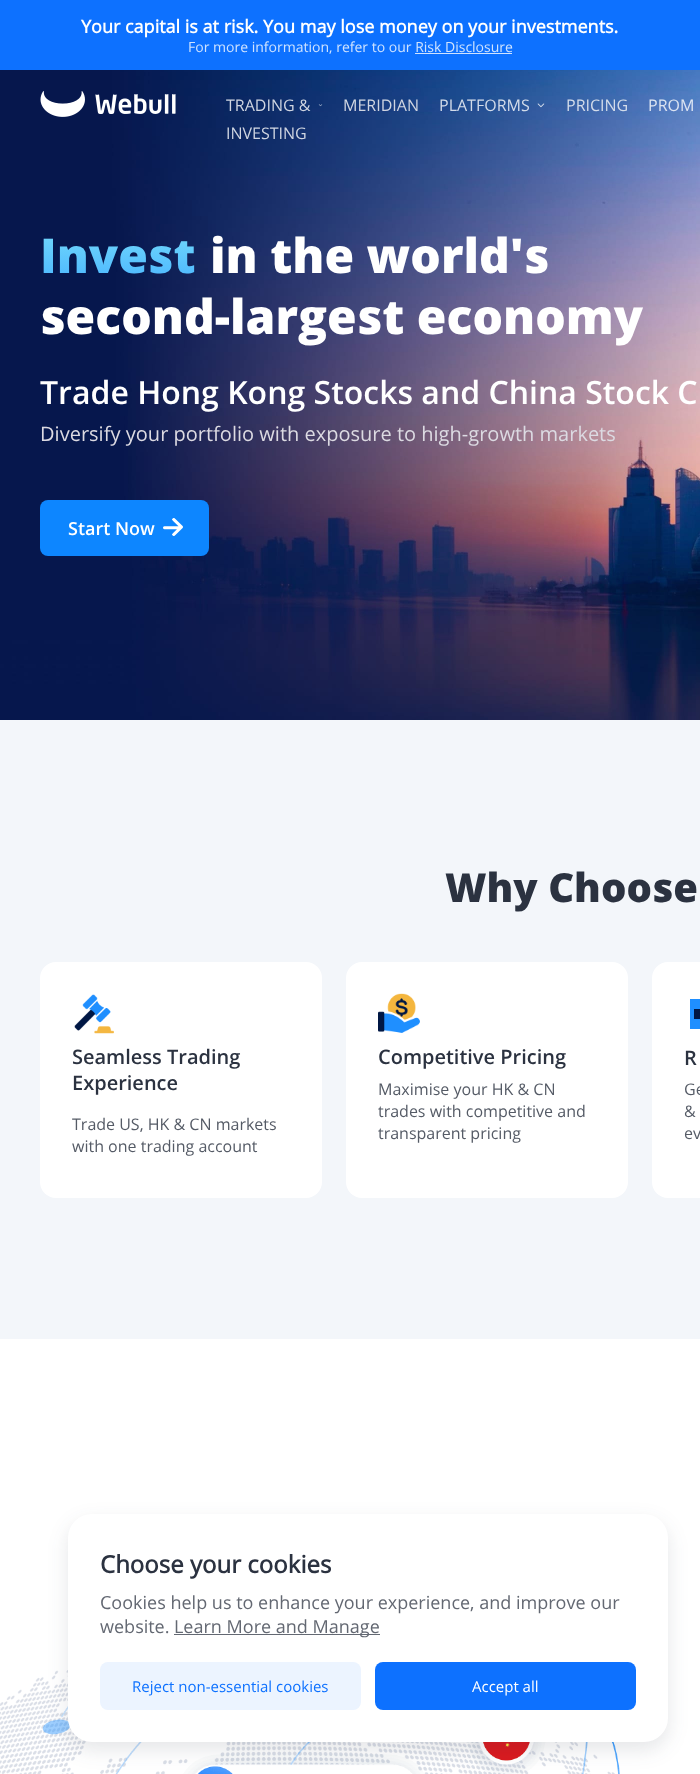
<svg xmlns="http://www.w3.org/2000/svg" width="700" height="1774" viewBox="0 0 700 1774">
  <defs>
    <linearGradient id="g1" gradientUnits="userSpaceOnUse" x1="124" y1="219" x2="124" y2="288"><stop offset="0" stop-color="#7adffa"/><stop offset="1" stop-color="#48b4ff"/></linearGradient>
  </defs>
  <rect width="100%" height="100%" fill="#fff"/>
  <path d="M0 0h700v70H0z" fill="#0d71ff"/>
  <path d="M415 53h97v1H415z" fill="#cfe3ff"/>
  <image x="0" y="70" width="700" height="650" href="img/4.png"/>
  <image x="40" y="91" width="136" height="26" href="img/1.png"/>
  <image x="318" y="104" width="5" height="3" href="img/2.png"/>
  <image x="537" y="103" width="8" height="5" href="img/3.png"/>
  <rect x="40" y="500" width="169" height="56" rx="8" fill="#0d86ff"/>
  <image x="163" y="518" width="20" height="18" href="img/5.png"/>
  <path d="M0 720h700v619H0z" fill="#f3f6fa"/>
  <rect x="40" y="962" width="282" height="236" rx="16" fill="#fff"/>
  <image x="74" y="994" width="40" height="40" href="img/6.png"/>
  <rect x="346" y="962" width="282" height="236" rx="16" fill="#fff"/>
  <image x="378" y="993" width="42" height="40" href="img/7.png"/>
  <rect x="652" y="962" width="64" height="236" rx="16" fill="#fff"/>
  <path d="M690 999h10v30H690z" fill="#1f8fff"/>
  <path d="M694 1009h6v10H694z" fill="#001744"/>
  <image x="0" y="1670" width="620" height="104" href="img/8.png"/>
  <rect x="68" y="1522" width="600" height="228" rx="24" fill="#2b32401f" filter="blur(10px)"/>
  <rect x="68" y="1514" width="600" height="228" rx="24" fill="#fff"/>
  <path d="M174 1634h206v1H174z" fill="#636872"/>
  <rect x="100" y="1662" width="261" height="48" rx="8" fill="#ecf4ff"/>
  <rect x="375" y="1662" width="261" height="48" rx="8" fill="#0d71ff"/>
  <text x="81" y="33" font-family="Open Sans" font-size="18" font-weight="bold" fill="#fff">Your capital is at risk. You may lose money on your investments.</text>
  <text x="188" y="52" font-family="Open Sans" font-size="14" fill="#cfe3ff">For more information, refer to our Risk Disclosure</text>
  <g font-family="Open Sans" font-size="16" fill="#cfd5e1">
    <text x="226" y="111">TRADING &amp;</text>
    <text x="226" y="139">INVESTING</text>
    <text x="343" y="111">MERIDIAN</text>
  </g>
  <g font-family="Open Sans" font-size="16" fill="#d3dcea">
    <text x="439" y="111">PLATFORMS</text>
    <text x="566" y="111">PRICING</text>
  </g>
  <text x="648" y="111" font-family="Open Sans" font-size="16" fill="#dce4f2">PROM</text>
  <text x="40" y="273" font-family="Open Sans" font-size="48" font-weight="800" fill="url(#g1)">Invest</text>
  <g font-family="Open Sans" font-size="48" font-weight="800" fill="#fff">
    <text x="210" y="273">in the world's</text>
    <text x="40" y="334">second-largest economy</text>
  </g>
  <text x="40" y="404" font-family="Open Sans" font-size="32" font-weight="600" fill="#fff">Trade Hong Kong Stocks and China Stock C</text>
  <text x="40" y="441" font-family="Open Sans" font-size="20" fill="#dcdae2">Diversify your portfolio with exposure to high-growth markets</text>
  <text x="68" y="535" font-family="Open Sans" font-size="18" font-weight="600" fill="#fff">Start Now</text>
  <text x="445" y="902" font-family="Open Sans" font-size="40" font-weight="800" fill="#2b3240">Why Choose</text>
  <g font-family="Open Sans" font-size="20" font-weight="600" fill="#2b3240">
    <text x="72" y="1064">Seamless Trading</text>
    <text x="72" y="1090">Experience</text>
    <text x="378" y="1064">Competitive Pricing</text>
  </g>
  <g font-family="Open Sans" font-size="16" fill="#555b66">
    <text x="378" y="1095">Maximise your HK &amp; CN</text>
    <text x="378" y="1117">trades with competitive and</text>
    <text x="378" y="1139">transparent pricing</text>
  </g>
  <text x="684" y="1065" font-family="Open Sans" font-size="20" font-weight="600" fill="#2b3240">R</text>
  <g font-family="Open Sans" font-size="16" fill="#555b66">
    <text x="684" y="1095">Ge</text>
    <text x="684" y="1117">&amp;</text>
    <text x="684" y="1139">ev</text>
    <text x="72" y="1130">Trade US, HK &amp; CN markets</text>
    <text x="72" y="1152">with one trading account</text>
  </g>
  <text x="100" y="1573" font-family="Open Sans" font-size="24" font-weight="bold" fill="#2b3240">Choose your cookies</text>
  <g font-family="Open Sans" font-size="18" fill="#636872">
    <text x="100" y="1609">Cookies help us to enhance your experience, and improve our</text>
    <text x="100" y="1633">website.</text>
    <text x="174" y="1633">Learn More and Manage</text>
  </g>
  <text x="132" y="1692" font-family="Open Sans" font-size="15" fill="#0d71ff">Reject non-essential cookies</text>
  <text x="472" y="1692" font-family="Open Sans" font-size="15" fill="#fff">Accept all</text>
</svg>
